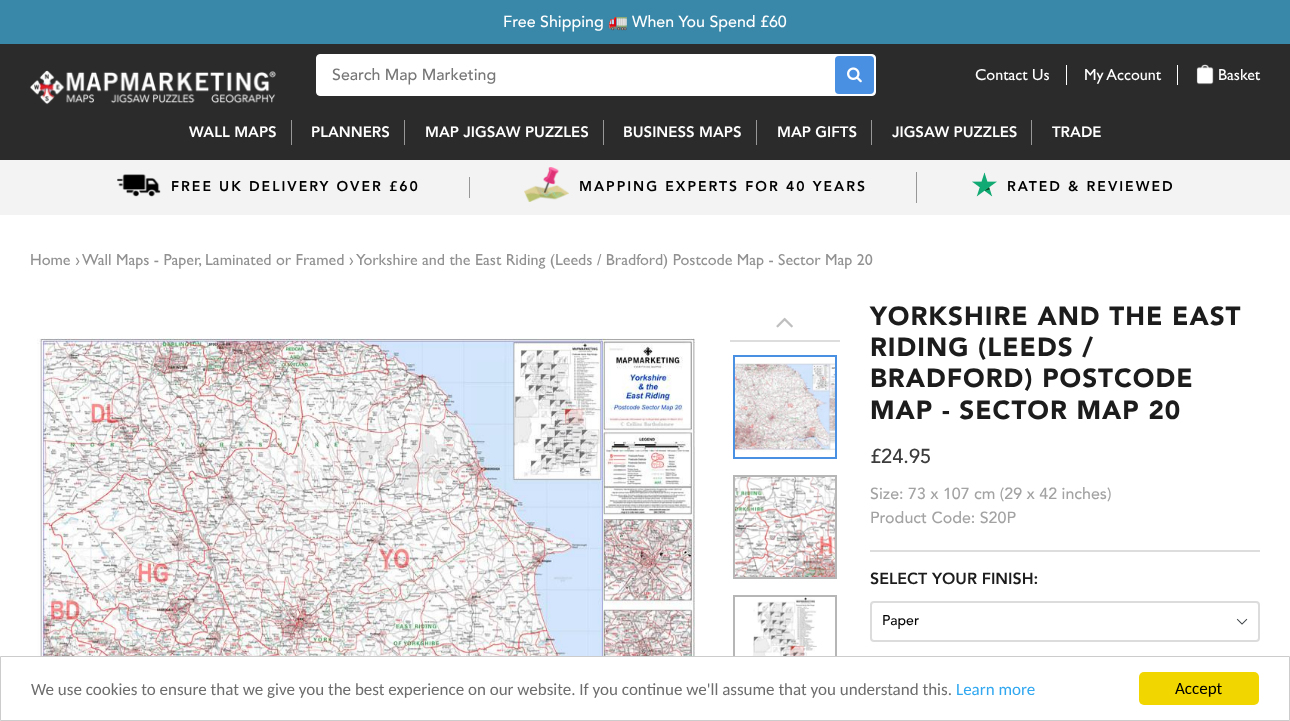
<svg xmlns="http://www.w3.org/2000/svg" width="1290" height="721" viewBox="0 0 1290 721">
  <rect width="100%" height="100%" fill="#fff"/>
  <path d="M0 0h1290v44H0z" fill="#3988a9"/>
  <path d="M0 44h1290v116H0z" fill="#2b2b2b"/>
  <image x="30" y="70" width="246" height="35" href="img/1.png"/>
  <rect x="316.5" y="54.5" width="559" height="41" rx="3.5" fill="#fff" stroke="#fff"/>
  <rect x="835" y="56" width="39" height="38" rx="4" fill="#4a90e2"/>
  <image x="847" y="67" width="15" height="16" href="img/2.png"/>
  <path d="M1066 65h1v20H1066z" fill="#fff"/>
  <path d="M1177 65h1v20H1177z" fill="#fff"/>
  <image x="1196" y="64" width="18" height="21" href="img/3.png"/>
  <path d="M291 120h1v25H291z" fill="#979797"/>
  <path d="M404 120h1v25H404z" fill="#979797"/>
  <path d="M603 120h1v25H603z" fill="#979797"/>
  <path d="M756 120h1v25H756z" fill="#979797"/>
  <path d="M871 120h1v25H871z" fill="#979797"/>
  <path d="M1031 120h1v25H1031z" fill="#979797"/>
  <path d="M0 160h1290v55H0z" fill="#f3f3f3"/>
  <image x="117" y="174" width="44" height="23" href="img/4.png"/>
  <path d="M469 177h1v21H469z" fill="#979797"/>
  <image x="524" y="167" width="45" height="35" href="img/5.png"/>
  <path d="M916 172h1v31H916z" fill="#979797"/>
  <image x="972" y="172" width="25" height="25" href="img/6.png"/>
  <image x="37" y="338" width="658" height="318" href="img/7.png"/>
  <path d="M730 340h110v2H730z" fill="#ddd"/>
  <image x="776" y="317" width="17" height="11" href="img/8.png"/>
  <path d="M734 356h102v102H734z" fill="none" stroke="#4a90e2" stroke-width="2"/>
  <image x="735" y="363" width="100" height="89" href="img/9.png"/>
  <path d="M734 476h102v102H734z" fill="none" stroke="#b6b6b6" stroke-width="2"/>
  <image x="735" y="477" width="100" height="100" href="img/10.png"/>
  <path d="M734 596h102v102H734z" fill="none" stroke="#b6b6b6" stroke-width="2"/>
  <image x="752" y="597" width="65" height="59" href="img/11.png"/>
  <path d="M870 550h390v2H870z" fill="#ddd"/>
  <image x="1236" y="618" width="12" height="7" href="img/12.png"/>
  <rect x="871" y="602" width="388" height="39" rx="3" fill="none" stroke="#dcdcdc" stroke-width="2"/>
  <path d="M733 657h104v42H733z" fill="#fff"/>
  <path d="M0.5 656.5h1289v64H0.5z" fill="none" stroke="#ccc"/>
  <rect x="1139" y="672" width="120" height="33" rx="5" fill="#f1d600"/>
  <text x="503" y="27" font-family="Avenir" font-size="16" font-weight="500" fill="#fff">Free Shipping</text>
  <text x="608" y="27" font-family="Noto Color Emoji" font-size="16" fill="#fff">🚛</text>
  <text x="632" y="27" font-family="Avenir" font-size="16" font-weight="500" fill="#fff">When You Spend £60</text>
  <text x="332" y="80" font-family="Avenir" font-size="16" font-weight="500" fill="#777">Search Map Marketing</text>
  <g font-family="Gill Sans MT" font-size="16" fill="#fff">
    <text x="975" y="80">Contact Us</text>
    <text x="1084" y="80">My Account</text>
    <text x="1218" y="80">Basket</text>
  </g>
  <g font-family="Avenir" font-size="15" font-weight="900" fill="#fff">
    <text x="189" y="137">WALL MAPS</text>
    <text x="311" y="137">PLANNERS</text>
    <text x="425" y="137">MAP JIGSAW PUZZLES</text>
    <text x="623" y="137">BUSINESS MAPS</text>
    <text x="777" y="137">MAP GIFTS</text>
    <text x="892" y="137">JIGSAW PUZZLES</text>
    <text x="1052" y="137">TRADE</text>
  </g>
  <g font-family="Avenir" font-size="14" font-weight="900" letter-spacing="2" fill="#000">
    <text x="171" y="191">FREE UK DELIVERY OVER £60</text>
    <text x="579" y="191">MAPPING EXPERTS FOR 40 YEARS</text>
    <text x="1007" y="191">RATED &amp; REVIEWED</text>
  </g>
  <g font-family="Gill Sans MT" font-size="16" fill="#919191">
    <text x="30" y="265">Home ›</text>
    <text x="82" y="265">Wall Maps - Paper, Laminated or Framed ›</text>
    <text x="356" y="265">Yorkshire and the East Riding (Leeds / Bradford) Postcode Map - Sector Map 20</text>
  </g>
  <g font-family="'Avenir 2'" font-size="26" font-weight="900" letter-spacing="1" fill="#1c1c1c">
    <text x="870" y="325">YORKSHIRE AND THE EAST</text>
    <text x="870" y="356">RIDING (LEEDS /</text>
    <text x="870" y="387">BRADFORD) POSTCODE</text>
    <text x="870" y="419">MAP - SECTOR MAP 20</text>
  </g>
  <text x="870" y="463" font-family="Avenir" font-size="20" font-weight="500" fill="#3c3c3c">£24.95</text>
  <g font-family="Avenir" font-size="16" font-weight="500" fill="#a3a3a3">
    <text x="870" y="499">Size: 73 x 107 cm (29 x 42 inches)</text>
    <text x="870" y="523">Product Code: S20P</text>
  </g>
  <text x="870" y="584" font-family="Avenir" font-size="16" font-weight="900" fill="#1c1c1c">SELECT YOUR FINISH:</text>
  <text x="882" y="625" font-family="Avenir" font-size="14" font-weight="500" fill="#000">Paper</text>
  <text x="31" y="695" font-family="Carlito" font-size="17" fill="#6d6d6d">We use cookies to ensure that we give you the best experience on our website. If you continue we'll assume that you understand this.</text>
  <text x="956" y="695" font-family="Carlito" font-size="17" fill="#31a8f0">Learn more</text>
  <text x="1175" y="694" font-family="Carlito" font-size="17" fill="#000">Accept</text>
</svg>
